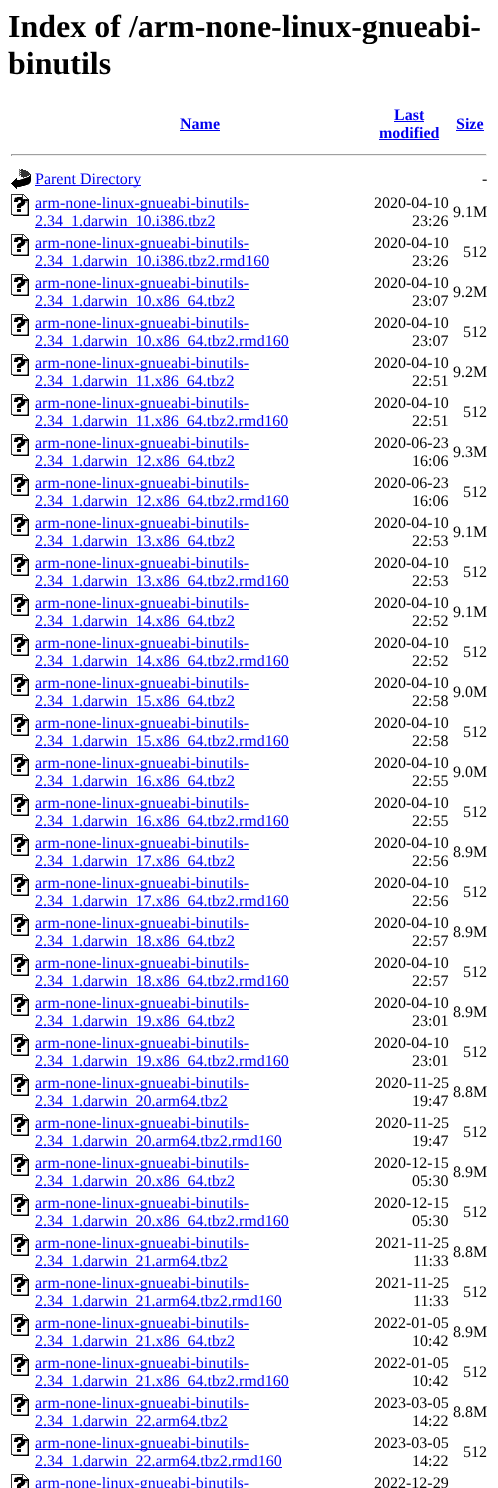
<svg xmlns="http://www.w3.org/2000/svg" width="498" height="1488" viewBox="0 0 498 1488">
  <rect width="100%" height="100%" fill="#fff"/>
  <path d="M180 130h40v1H180z" fill="#00e"/>
  <path d="M394 121h30v1H394z" fill="#00e"/>
  <path d="M379 139h60v1H379z" fill="#00e"/>
  <path d="M456 130h28v1H456z" fill="#00e"/>
  <path d="M11 154h476v1H11z" fill="#9f9f9f"/>
  <path d="M486 154h1v2H486z" fill="#eee"/>
  <path d="M11 155h476v1H11z" fill="#eee"/>
  <path d="M11 154h1v2H11z" fill="#9f9f9f"/>
  <image x="11" y="169" width="20" height="20" href="img/1.png"/>
  <path d="M35 185h106v1H35z" fill="#00e"/>
  <image x="11" y="194" width="18" height="22" href="img/2.png"/>
  <path d="M35 209h214v1H35z" fill="#00e"/>
  <path d="M35 227h180v1H35z" fill="#00e"/>
  <image x="11" y="234" width="18" height="22" href="img/2.png"/>
  <path d="M35 249h214v1H35z" fill="#00e"/>
  <path d="M35 267h234v1H35z" fill="#00e"/>
  <image x="11" y="274" width="18" height="22" href="img/2.png"/>
  <path d="M35 289h214v1H35z" fill="#00e"/>
  <path d="M35 307h200v1H35z" fill="#00e"/>
  <image x="11" y="314" width="18" height="22" href="img/2.png"/>
  <path d="M35 329h214v1H35z" fill="#00e"/>
  <path d="M35 347h254v1H35z" fill="#00e"/>
  <image x="11" y="354" width="18" height="22" href="img/2.png"/>
  <path d="M35 369h214v1H35z" fill="#00e"/>
  <path d="M35 387h199v1H35z" fill="#00e"/>
  <image x="11" y="394" width="18" height="22" href="img/2.png"/>
  <path d="M35 409h214v1H35z" fill="#00e"/>
  <path d="M35 427h253v1H35z" fill="#00e"/>
  <image x="11" y="434" width="18" height="22" href="img/2.png"/>
  <path d="M35 449h214v1H35z" fill="#00e"/>
  <path d="M35 467h200v1H35z" fill="#00e"/>
  <image x="11" y="474" width="18" height="22" href="img/2.png"/>
  <path d="M35 489h214v1H35z" fill="#00e"/>
  <path d="M35 507h254v1H35z" fill="#00e"/>
  <image x="11" y="514" width="18" height="22" href="img/2.png"/>
  <path d="M35 529h214v1H35z" fill="#00e"/>
  <path d="M35 547h200v1H35z" fill="#00e"/>
  <image x="11" y="554" width="18" height="22" href="img/2.png"/>
  <path d="M35 569h214v1H35z" fill="#00e"/>
  <path d="M35 587h254v1H35z" fill="#00e"/>
  <image x="11" y="594" width="18" height="22" href="img/2.png"/>
  <path d="M35 609h214v1H35z" fill="#00e"/>
  <path d="M35 627h200v1H35z" fill="#00e"/>
  <image x="11" y="634" width="18" height="22" href="img/2.png"/>
  <path d="M35 649h214v1H35z" fill="#00e"/>
  <path d="M35 667h254v1H35z" fill="#00e"/>
  <image x="11" y="674" width="18" height="22" href="img/2.png"/>
  <path d="M35 689h214v1H35z" fill="#00e"/>
  <path d="M35 707h200v1H35z" fill="#00e"/>
  <image x="11" y="714" width="18" height="22" href="img/2.png"/>
  <path d="M35 729h214v1H35z" fill="#00e"/>
  <path d="M35 747h254v1H35z" fill="#00e"/>
  <image x="11" y="754" width="18" height="22" href="img/2.png"/>
  <path d="M35 769h214v1H35z" fill="#00e"/>
  <path d="M35 787h200v1H35z" fill="#00e"/>
  <image x="11" y="794" width="18" height="22" href="img/2.png"/>
  <path d="M35 809h214v1H35z" fill="#00e"/>
  <path d="M35 827h254v1H35z" fill="#00e"/>
  <image x="11" y="834" width="18" height="22" href="img/2.png"/>
  <path d="M35 849h214v1H35z" fill="#00e"/>
  <path d="M35 867h200v1H35z" fill="#00e"/>
  <image x="11" y="874" width="18" height="22" href="img/2.png"/>
  <path d="M35 889h214v1H35z" fill="#00e"/>
  <path d="M35 907h254v1H35z" fill="#00e"/>
  <image x="11" y="914" width="18" height="22" href="img/2.png"/>
  <path d="M35 929h214v1H35z" fill="#00e"/>
  <path d="M35 947h200v1H35z" fill="#00e"/>
  <image x="11" y="954" width="18" height="22" href="img/2.png"/>
  <path d="M35 969h214v1H35z" fill="#00e"/>
  <path d="M35 987h254v1H35z" fill="#00e"/>
  <image x="11" y="994" width="18" height="22" href="img/2.png"/>
  <path d="M35 1009h214v1H35z" fill="#00e"/>
  <path d="M35 1027h200v1H35z" fill="#00e"/>
  <image x="11" y="1034" width="18" height="22" href="img/2.png"/>
  <path d="M35 1049h214v1H35z" fill="#00e"/>
  <path d="M35 1067h254v1H35z" fill="#00e"/>
  <image x="11" y="1074" width="18" height="22" href="img/2.png"/>
  <path d="M35 1089h214v1H35z" fill="#00e"/>
  <path d="M35 1107h193v1H35z" fill="#00e"/>
  <image x="11" y="1114" width="18" height="22" href="img/2.png"/>
  <path d="M35 1129h214v1H35z" fill="#00e"/>
  <path d="M35 1147h247v1H35z" fill="#00e"/>
  <image x="11" y="1154" width="18" height="22" href="img/2.png"/>
  <path d="M35 1169h214v1H35z" fill="#00e"/>
  <path d="M35 1187h200v1H35z" fill="#00e"/>
  <image x="11" y="1194" width="18" height="22" href="img/2.png"/>
  <path d="M35 1209h214v1H35z" fill="#00e"/>
  <path d="M35 1227h254v1H35z" fill="#00e"/>
  <image x="11" y="1234" width="18" height="22" href="img/2.png"/>
  <path d="M35 1249h214v1H35z" fill="#00e"/>
  <path d="M35 1267h193v1H35z" fill="#00e"/>
  <image x="11" y="1274" width="18" height="22" href="img/2.png"/>
  <path d="M35 1289h214v1H35z" fill="#00e"/>
  <path d="M35 1307h247v1H35z" fill="#00e"/>
  <image x="11" y="1314" width="18" height="22" href="img/2.png"/>
  <path d="M35 1329h214v1H35z" fill="#00e"/>
  <path d="M35 1347h200v1H35z" fill="#00e"/>
  <image x="11" y="1354" width="18" height="22" href="img/2.png"/>
  <path d="M35 1369h214v1H35z" fill="#00e"/>
  <path d="M35 1387h254v1H35z" fill="#00e"/>
  <image x="11" y="1394" width="18" height="22" href="img/2.png"/>
  <path d="M35 1409h214v1H35z" fill="#00e"/>
  <path d="M35 1427h193v1H35z" fill="#00e"/>
  <image x="11" y="1434" width="18" height="22" href="img/2.png"/>
  <path d="M35 1449h214v1H35z" fill="#00e"/>
  <path d="M35 1467h247v1H35z" fill="#00e"/>
  <image x="11" y="1474" width="18" height="14" href="img/3.png"/>
  <g font-family="Liberation Serif" font-size="32" font-weight="bold" fill="#000">
    <text x="8" y="37">Index of /arm-none-linux-gnueabi-</text>
    <text x="8" y="74">binutils</text>
  </g>
  <g font-family="Liberation Serif" font-size="16" font-weight="bold" fill="#00e">
    <text x="180" y="129">Name</text>
    <text x="394" y="120">Last</text>
    <text x="379" y="138">modified</text>
    <text x="456" y="129">Size</text>
  </g>
  <text x="35" y="184" font-family="Liberation Serif" font-size="16" fill="#00e">Parent Directory</text>
  <text x="482" y="184" font-family="Liberation Serif" font-size="16" fill="#000">-</text>
  <g font-family="Liberation Serif" font-size="16" fill="#00e">
    <text x="35" y="208">arm-none-linux-gnueabi-binutils-</text>
    <text x="35" y="226">2.34_1.darwin_10.i386.tbz2</text>
  </g>
  <g font-family="Liberation Serif" font-size="16" fill="#000">
    <text x="374" y="208">2020-04-10</text>
    <text x="412" y="226">23:26</text>
    <text x="453" y="217">9.1M</text>
  </g>
  <g font-family="Liberation Serif" font-size="16" fill="#00e">
    <text x="35" y="248">arm-none-linux-gnueabi-binutils-</text>
    <text x="35" y="266">2.34_1.darwin_10.i386.tbz2.rmd160</text>
  </g>
  <g font-family="Liberation Serif" font-size="16" fill="#000">
    <text x="374" y="248">2020-04-10</text>
    <text x="412" y="266">23:26</text>
    <text x="463" y="257">512</text>
  </g>
  <g font-family="Liberation Serif" font-size="16" fill="#00e">
    <text x="35" y="288">arm-none-linux-gnueabi-binutils-</text>
    <text x="35" y="306">2.34_1.darwin_10.x86_64.tbz2</text>
  </g>
  <g font-family="Liberation Serif" font-size="16" fill="#000">
    <text x="374" y="288">2020-04-10</text>
    <text x="412" y="306">23:07</text>
    <text x="453" y="297">9.2M</text>
  </g>
  <g font-family="Liberation Serif" font-size="16" fill="#00e">
    <text x="35" y="328">arm-none-linux-gnueabi-binutils-</text>
    <text x="35" y="346">2.34_1.darwin_10.x86_64.tbz2.rmd160</text>
  </g>
  <g font-family="Liberation Serif" font-size="16" fill="#000">
    <text x="374" y="328">2020-04-10</text>
    <text x="412" y="346">23:07</text>
    <text x="463" y="337">512</text>
  </g>
  <g font-family="Liberation Serif" font-size="16" fill="#00e">
    <text x="35" y="368">arm-none-linux-gnueabi-binutils-</text>
    <text x="35" y="386">2.34_1.darwin_11.x86_64.tbz2</text>
  </g>
  <g font-family="Liberation Serif" font-size="16" fill="#000">
    <text x="374" y="368">2020-04-10</text>
    <text x="412" y="386">22:51</text>
    <text x="453" y="377">9.2M</text>
  </g>
  <g font-family="Liberation Serif" font-size="16" fill="#00e">
    <text x="35" y="408">arm-none-linux-gnueabi-binutils-</text>
    <text x="35" y="426">2.34_1.darwin_11.x86_64.tbz2.rmd160</text>
  </g>
  <g font-family="Liberation Serif" font-size="16" fill="#000">
    <text x="374" y="408">2020-04-10</text>
    <text x="412" y="426">22:51</text>
    <text x="463" y="417">512</text>
  </g>
  <g font-family="Liberation Serif" font-size="16" fill="#00e">
    <text x="35" y="448">arm-none-linux-gnueabi-binutils-</text>
    <text x="35" y="466">2.34_1.darwin_12.x86_64.tbz2</text>
  </g>
  <g font-family="Liberation Serif" font-size="16" fill="#000">
    <text x="374" y="448">2020-06-23</text>
    <text x="412" y="466">16:06</text>
    <text x="453" y="457">9.3M</text>
  </g>
  <g font-family="Liberation Serif" font-size="16" fill="#00e">
    <text x="35" y="488">arm-none-linux-gnueabi-binutils-</text>
    <text x="35" y="506">2.34_1.darwin_12.x86_64.tbz2.rmd160</text>
  </g>
  <g font-family="Liberation Serif" font-size="16" fill="#000">
    <text x="374" y="488">2020-06-23</text>
    <text x="412" y="506">16:06</text>
    <text x="463" y="497">512</text>
  </g>
  <g font-family="Liberation Serif" font-size="16" fill="#00e">
    <text x="35" y="528">arm-none-linux-gnueabi-binutils-</text>
    <text x="35" y="546">2.34_1.darwin_13.x86_64.tbz2</text>
  </g>
  <g font-family="Liberation Serif" font-size="16" fill="#000">
    <text x="374" y="528">2020-04-10</text>
    <text x="412" y="546">22:53</text>
    <text x="453" y="537">9.1M</text>
  </g>
  <g font-family="Liberation Serif" font-size="16" fill="#00e">
    <text x="35" y="568">arm-none-linux-gnueabi-binutils-</text>
    <text x="35" y="586">2.34_1.darwin_13.x86_64.tbz2.rmd160</text>
  </g>
  <g font-family="Liberation Serif" font-size="16" fill="#000">
    <text x="374" y="568">2020-04-10</text>
    <text x="412" y="586">22:53</text>
    <text x="463" y="577">512</text>
  </g>
  <g font-family="Liberation Serif" font-size="16" fill="#00e">
    <text x="35" y="608">arm-none-linux-gnueabi-binutils-</text>
    <text x="35" y="626">2.34_1.darwin_14.x86_64.tbz2</text>
  </g>
  <g font-family="Liberation Serif" font-size="16" fill="#000">
    <text x="374" y="608">2020-04-10</text>
    <text x="412" y="626">22:52</text>
    <text x="453" y="617">9.1M</text>
  </g>
  <g font-family="Liberation Serif" font-size="16" fill="#00e">
    <text x="35" y="648">arm-none-linux-gnueabi-binutils-</text>
    <text x="35" y="666">2.34_1.darwin_14.x86_64.tbz2.rmd160</text>
  </g>
  <g font-family="Liberation Serif" font-size="16" fill="#000">
    <text x="374" y="648">2020-04-10</text>
    <text x="412" y="666">22:52</text>
    <text x="463" y="657">512</text>
  </g>
  <g font-family="Liberation Serif" font-size="16" fill="#00e">
    <text x="35" y="688">arm-none-linux-gnueabi-binutils-</text>
    <text x="35" y="706">2.34_1.darwin_15.x86_64.tbz2</text>
  </g>
  <g font-family="Liberation Serif" font-size="16" fill="#000">
    <text x="374" y="688">2020-04-10</text>
    <text x="412" y="706">22:58</text>
    <text x="453" y="697">9.0M</text>
  </g>
  <g font-family="Liberation Serif" font-size="16" fill="#00e">
    <text x="35" y="728">arm-none-linux-gnueabi-binutils-</text>
    <text x="35" y="746">2.34_1.darwin_15.x86_64.tbz2.rmd160</text>
  </g>
  <g font-family="Liberation Serif" font-size="16" fill="#000">
    <text x="374" y="728">2020-04-10</text>
    <text x="412" y="746">22:58</text>
    <text x="463" y="737">512</text>
  </g>
  <g font-family="Liberation Serif" font-size="16" fill="#00e">
    <text x="35" y="768">arm-none-linux-gnueabi-binutils-</text>
    <text x="35" y="786">2.34_1.darwin_16.x86_64.tbz2</text>
  </g>
  <g font-family="Liberation Serif" font-size="16" fill="#000">
    <text x="374" y="768">2020-04-10</text>
    <text x="412" y="786">22:55</text>
    <text x="453" y="777">9.0M</text>
  </g>
  <g font-family="Liberation Serif" font-size="16" fill="#00e">
    <text x="35" y="808">arm-none-linux-gnueabi-binutils-</text>
    <text x="35" y="826">2.34_1.darwin_16.x86_64.tbz2.rmd160</text>
  </g>
  <g font-family="Liberation Serif" font-size="16" fill="#000">
    <text x="374" y="808">2020-04-10</text>
    <text x="412" y="826">22:55</text>
    <text x="463" y="817">512</text>
  </g>
  <g font-family="Liberation Serif" font-size="16" fill="#00e">
    <text x="35" y="848">arm-none-linux-gnueabi-binutils-</text>
    <text x="35" y="866">2.34_1.darwin_17.x86_64.tbz2</text>
  </g>
  <g font-family="Liberation Serif" font-size="16" fill="#000">
    <text x="374" y="848">2020-04-10</text>
    <text x="412" y="866">22:56</text>
    <text x="453" y="857">8.9M</text>
  </g>
  <g font-family="Liberation Serif" font-size="16" fill="#00e">
    <text x="35" y="888">arm-none-linux-gnueabi-binutils-</text>
    <text x="35" y="906">2.34_1.darwin_17.x86_64.tbz2.rmd160</text>
  </g>
  <g font-family="Liberation Serif" font-size="16" fill="#000">
    <text x="374" y="888">2020-04-10</text>
    <text x="412" y="906">22:56</text>
    <text x="463" y="897">512</text>
  </g>
  <g font-family="Liberation Serif" font-size="16" fill="#00e">
    <text x="35" y="928">arm-none-linux-gnueabi-binutils-</text>
    <text x="35" y="946">2.34_1.darwin_18.x86_64.tbz2</text>
  </g>
  <g font-family="Liberation Serif" font-size="16" fill="#000">
    <text x="374" y="928">2020-04-10</text>
    <text x="412" y="946">22:57</text>
    <text x="453" y="937">8.9M</text>
  </g>
  <g font-family="Liberation Serif" font-size="16" fill="#00e">
    <text x="35" y="968">arm-none-linux-gnueabi-binutils-</text>
    <text x="35" y="986">2.34_1.darwin_18.x86_64.tbz2.rmd160</text>
  </g>
  <g font-family="Liberation Serif" font-size="16" fill="#000">
    <text x="374" y="968">2020-04-10</text>
    <text x="412" y="986">22:57</text>
    <text x="463" y="977">512</text>
  </g>
  <g font-family="Liberation Serif" font-size="16" fill="#00e">
    <text x="35" y="1008">arm-none-linux-gnueabi-binutils-</text>
    <text x="35" y="1026">2.34_1.darwin_19.x86_64.tbz2</text>
  </g>
  <g font-family="Liberation Serif" font-size="16" fill="#000">
    <text x="374" y="1008">2020-04-10</text>
    <text x="412" y="1026">23:01</text>
    <text x="453" y="1017">8.9M</text>
  </g>
  <g font-family="Liberation Serif" font-size="16" fill="#00e">
    <text x="35" y="1048">arm-none-linux-gnueabi-binutils-</text>
    <text x="35" y="1066">2.34_1.darwin_19.x86_64.tbz2.rmd160</text>
  </g>
  <g font-family="Liberation Serif" font-size="16" fill="#000">
    <text x="374" y="1048">2020-04-10</text>
    <text x="412" y="1066">23:01</text>
    <text x="463" y="1057">512</text>
  </g>
  <g font-family="Liberation Serif" font-size="16" fill="#00e">
    <text x="35" y="1088">arm-none-linux-gnueabi-binutils-</text>
    <text x="35" y="1106">2.34_1.darwin_20.arm64.tbz2</text>
  </g>
  <g font-family="Liberation Serif" font-size="16" fill="#000">
    <text x="375" y="1088">2020-11-25</text>
    <text x="412" y="1106">19:47</text>
    <text x="453" y="1097">8.8M</text>
  </g>
  <g font-family="Liberation Serif" font-size="16" fill="#00e">
    <text x="35" y="1128">arm-none-linux-gnueabi-binutils-</text>
    <text x="35" y="1146">2.34_1.darwin_20.arm64.tbz2.rmd160</text>
  </g>
  <g font-family="Liberation Serif" font-size="16" fill="#000">
    <text x="375" y="1128">2020-11-25</text>
    <text x="412" y="1146">19:47</text>
    <text x="463" y="1137">512</text>
  </g>
  <g font-family="Liberation Serif" font-size="16" fill="#00e">
    <text x="35" y="1168">arm-none-linux-gnueabi-binutils-</text>
    <text x="35" y="1186">2.34_1.darwin_20.x86_64.tbz2</text>
  </g>
  <g font-family="Liberation Serif" font-size="16" fill="#000">
    <text x="374" y="1168">2020-12-15</text>
    <text x="412" y="1186">05:30</text>
    <text x="453" y="1177">8.9M</text>
  </g>
  <g font-family="Liberation Serif" font-size="16" fill="#00e">
    <text x="35" y="1208">arm-none-linux-gnueabi-binutils-</text>
    <text x="35" y="1226">2.34_1.darwin_20.x86_64.tbz2.rmd160</text>
  </g>
  <g font-family="Liberation Serif" font-size="16" fill="#000">
    <text x="374" y="1208">2020-12-15</text>
    <text x="412" y="1226">05:30</text>
    <text x="463" y="1217">512</text>
  </g>
  <g font-family="Liberation Serif" font-size="16" fill="#00e">
    <text x="35" y="1248">arm-none-linux-gnueabi-binutils-</text>
    <text x="35" y="1266">2.34_1.darwin_21.arm64.tbz2</text>
  </g>
  <g font-family="Liberation Serif" font-size="16" fill="#000">
    <text x="375" y="1248">2021-11-25</text>
    <text x="413" y="1266">11:33</text>
    <text x="453" y="1257">8.8M</text>
  </g>
  <g font-family="Liberation Serif" font-size="16" fill="#00e">
    <text x="35" y="1288">arm-none-linux-gnueabi-binutils-</text>
    <text x="35" y="1306">2.34_1.darwin_21.arm64.tbz2.rmd160</text>
  </g>
  <g font-family="Liberation Serif" font-size="16" fill="#000">
    <text x="375" y="1288">2021-11-25</text>
    <text x="413" y="1306">11:33</text>
    <text x="463" y="1297">512</text>
  </g>
  <g font-family="Liberation Serif" font-size="16" fill="#00e">
    <text x="35" y="1328">arm-none-linux-gnueabi-binutils-</text>
    <text x="35" y="1346">2.34_1.darwin_21.x86_64.tbz2</text>
  </g>
  <g font-family="Liberation Serif" font-size="16" fill="#000">
    <text x="374" y="1328">2022-01-05</text>
    <text x="412" y="1346">10:42</text>
    <text x="453" y="1337">8.9M</text>
  </g>
  <g font-family="Liberation Serif" font-size="16" fill="#00e">
    <text x="35" y="1368">arm-none-linux-gnueabi-binutils-</text>
    <text x="35" y="1386">2.34_1.darwin_21.x86_64.tbz2.rmd160</text>
  </g>
  <g font-family="Liberation Serif" font-size="16" fill="#000">
    <text x="374" y="1368">2022-01-05</text>
    <text x="412" y="1386">10:42</text>
    <text x="463" y="1377">512</text>
  </g>
  <g font-family="Liberation Serif" font-size="16" fill="#00e">
    <text x="35" y="1408">arm-none-linux-gnueabi-binutils-</text>
    <text x="35" y="1426">2.34_1.darwin_22.arm64.tbz2</text>
  </g>
  <g font-family="Liberation Serif" font-size="16" fill="#000">
    <text x="374" y="1408">2023-03-05</text>
    <text x="412" y="1426">14:22</text>
    <text x="453" y="1417">8.8M</text>
  </g>
  <g font-family="Liberation Serif" font-size="16" fill="#00e">
    <text x="35" y="1448">arm-none-linux-gnueabi-binutils-</text>
    <text x="35" y="1466">2.34_1.darwin_22.arm64.tbz2.rmd160</text>
  </g>
  <g font-family="Liberation Serif" font-size="16" fill="#000">
    <text x="374" y="1448">2023-03-05</text>
    <text x="412" y="1466">14:22</text>
    <text x="463" y="1457">512</text>
  </g>
  <text x="35" y="1488" font-family="Liberation Serif" font-size="16" fill="#00e">arm-none-linux-gnueabi-binutils-</text>
  <text x="374" y="1488" font-family="Liberation Serif" font-size="16" fill="#000">2022-12-29</text>
</svg>
